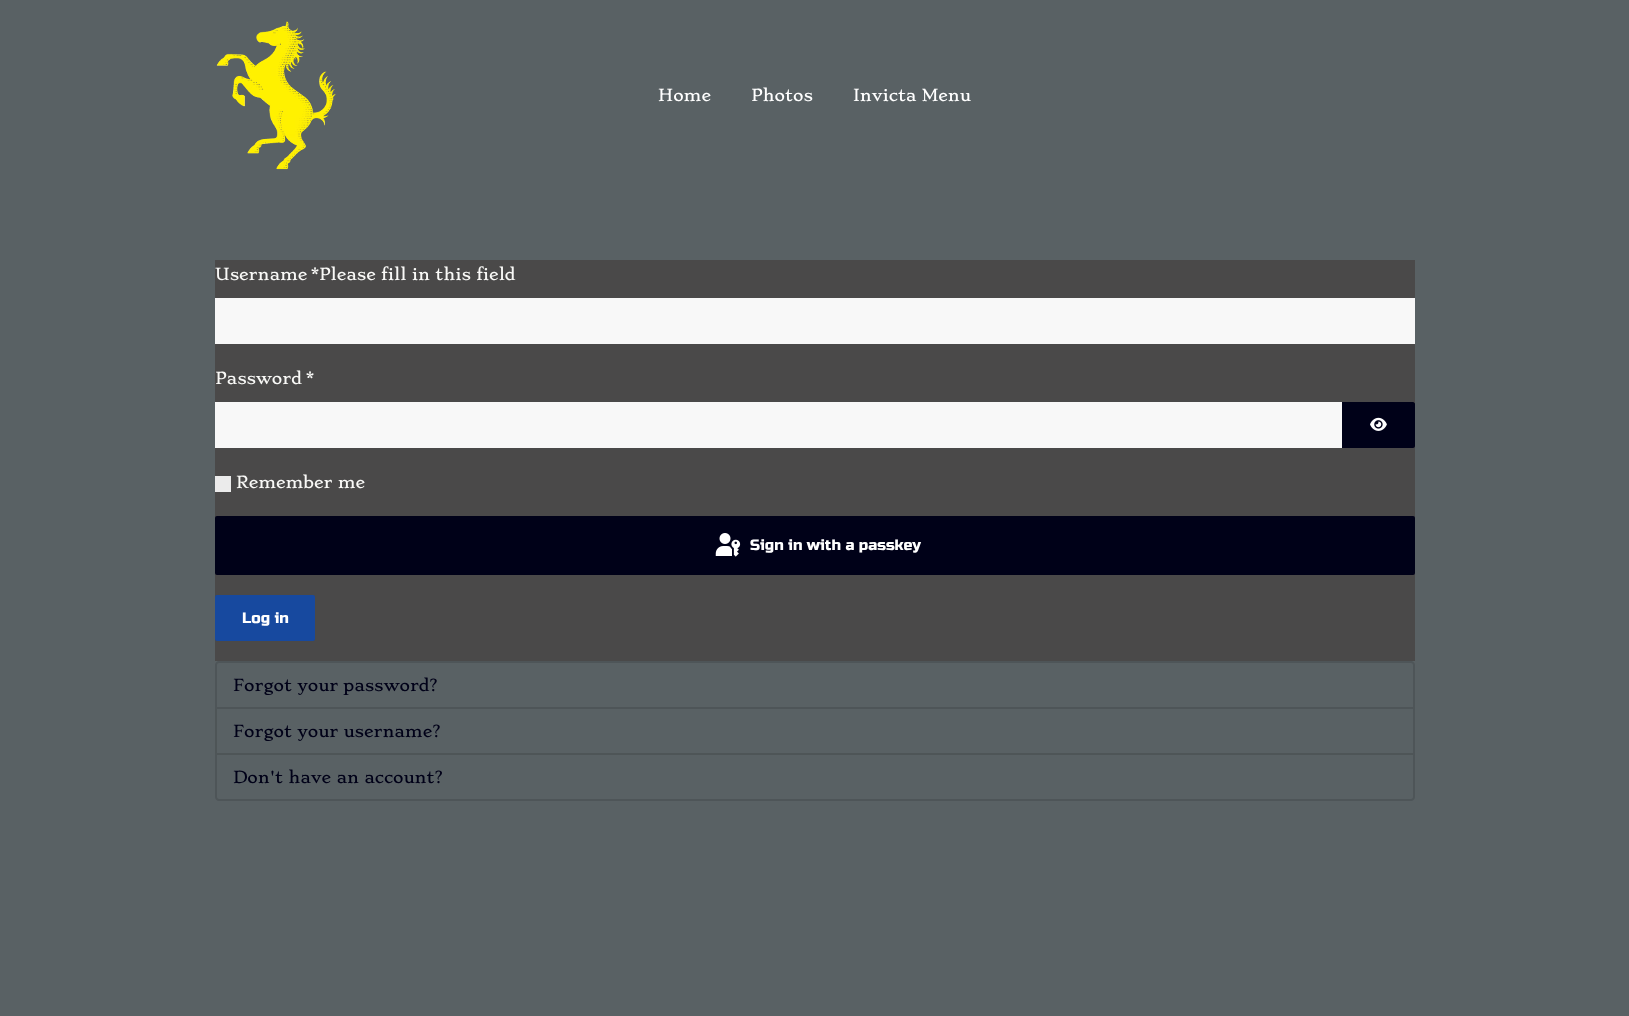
<svg xmlns="http://www.w3.org/2000/svg" width="1629" height="1016" viewBox="0 0 1629 1016">
  <rect width="100%" height="100%" fill="#596164"/>
  <image x="216" y="21" width="120" height="149" href="img/1.png"/>
  <path d="M215 260h1200v401H215z" fill="#4a4949"/>
  <path d="M215 298h1200v46H215z" fill="#f8f8f8"/>
  <path d="M215 402h1127v46H215z" fill="#f8f8f8"/>
  <path d="M1342 402H1413C1414 402 1415 403 1415 404V446C1415 447 1414 448 1413 448H1342Z" fill="#000118"/>
  <image x="1370" y="417" width="17" height="14" href="img/2.png"/>
  <path d="M215 476h16v16H215z" fill="#ebebeb"/>
  <rect x="215" y="516" width="1200" height="59" rx="2" fill="#000118"/>
  <image x="715" y="533" width="26" height="24" href="img/3.png"/>
  <rect x="215" y="595" width="100" height="46" rx="2" fill="#17499f"/>
  <path d="M219 662H1411C1412.5 662 1414 663.5 1414 665V708H216V665C216 663.5 217.5 662 219 662Z" fill="none" stroke="#4e5558" stroke-width="2"/>
  <path d="M1415 709V755L1413 753V709Z" fill="#4e5558"/>
  <path d="M1415 755H215L217 753H1413Z" fill="#0000001f"/>
  <path d="M215 755V709H217V753Z" fill="#0000001f"/>
  <path d="M215 755H1415V797C1415 799 1413 801 1411 801H219C217 801 215 799 215 797ZM217 755H1413V797C1413 798 1412 799 1411 799H219C218 799 217 798 217 797Z" fill="#4e5558" fill-rule="evenodd"/>
  <g font-family="Stoke" font-size="16" fill="#fff">
    <text x="658" y="101">Home</text>
    <text x="751" y="101">Photos</text>
    <text x="853" y="101">Invicta Menu</text>
  </g>
  <g font-family="Stoke" font-size="16" fill="#f9f9f7">
    <text x="215" y="280">Username</text>
    <text x="311" y="280">*Please fill in this field</text>
    <text x="215" y="384">Password</text>
    <text x="306" y="384">*</text>
    <text x="236" y="488">Remember me</text>
  </g>
  <g font-family="Russo One" font-size="15" fill="#fff">
    <text x="750" y="550">Sign in with a passkey</text>
    <text x="242" y="623">Log in</text>
  </g>
  <g font-family="Stoke" font-size="16" fill="#000118">
    <text x="233" y="691">Forgot your password?</text>
    <text x="233" y="737">Forgot your username?</text>
    <text x="233" y="783">Don't have an account?</text>
  </g>
</svg>
